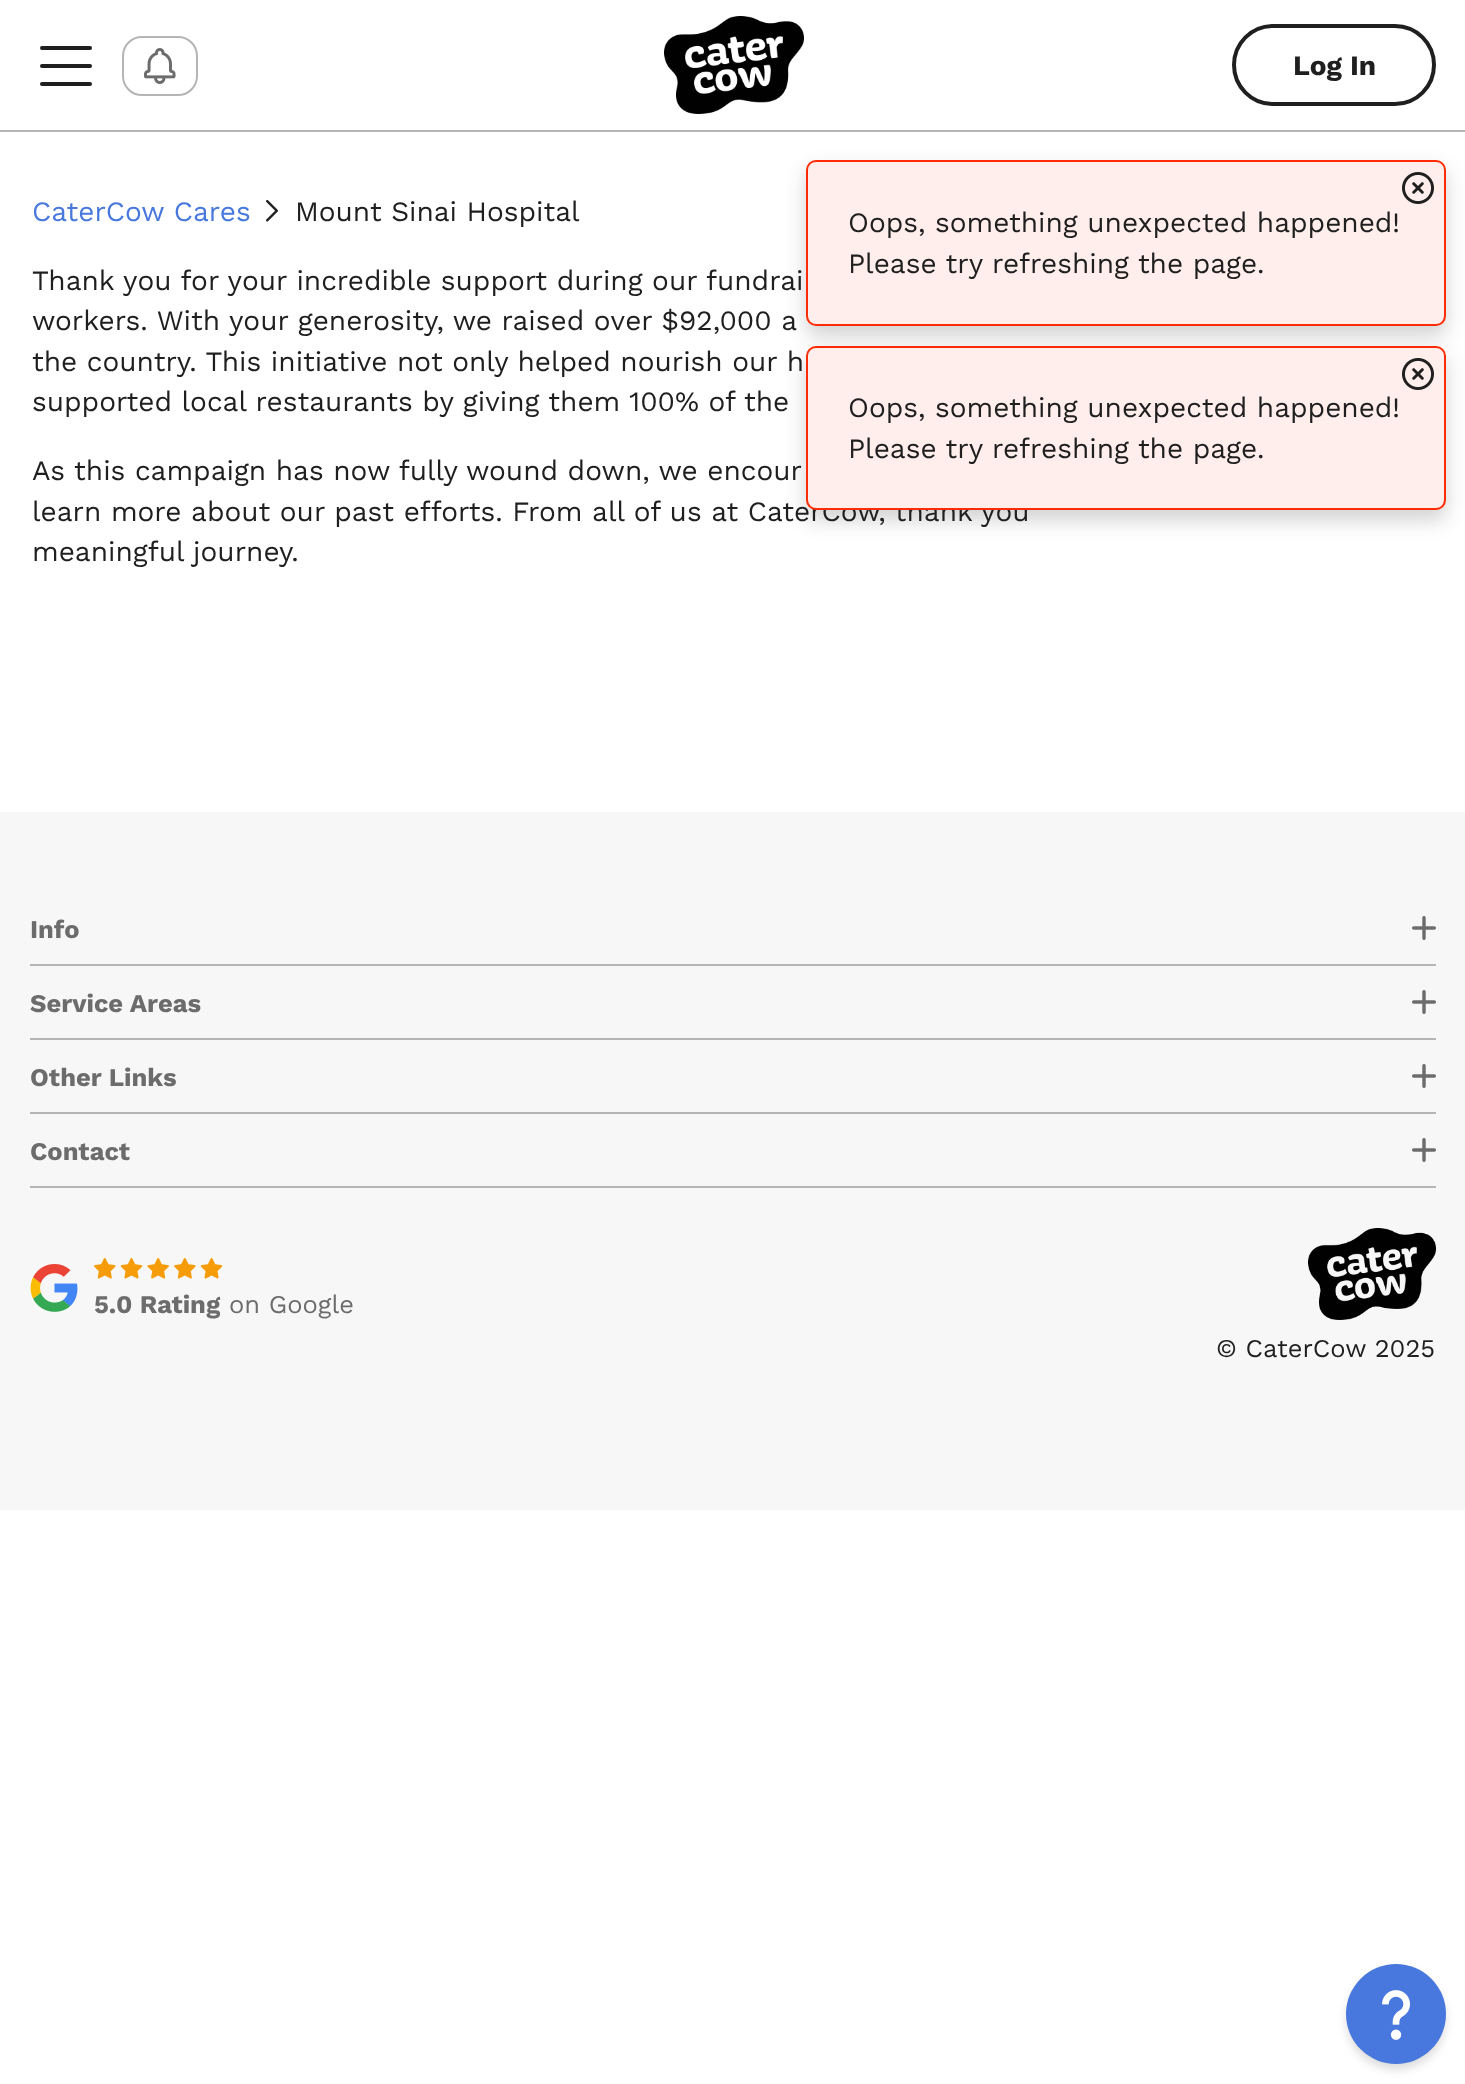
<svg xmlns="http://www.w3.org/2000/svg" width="1465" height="2084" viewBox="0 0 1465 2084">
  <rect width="100%" height="100%" fill="#fff"/>
  <path d="M0 130h1465v2H0z" fill="#b5b5b5"/>
  <rect x="40" y="46" width="52" height="4" rx="2" fill="#1f1f1f"/>
  <rect x="40" y="64" width="52" height="4" rx="2" fill="#1f1f1f"/>
  <rect x="40" y="82" width="52" height="4" rx="2" fill="#1f1f1f"/>
  <rect x="123" y="37" width="74" height="58" rx="19" fill="none" stroke="#b5b5b5" stroke-width="2"/>
  <image x="144" y="48" width="32" height="36" href="img/1.png"/>
  <image x="664" y="16" width="140" height="98" href="img/2.png"/>
  <rect x="1234" y="26" width="200" height="78" rx="39" fill="none" stroke="#1f1f1f" stroke-width="4"/>
  <image x="266" y="200" width="12" height="22" href="img/3.png"/>
  <rect x="806" y="170" width="640" height="166" rx="10" fill="#1f1f1f33" filter="blur(10px)"/>
  <rect x="807" y="161" width="638" height="164" rx="9" fill="#ffeeeb" stroke="#fd2c07" stroke-width="2"/>
  <image x="1402" y="172" width="32" height="32" href="img/4.png"/>
  <rect x="806" y="356" width="640" height="164" rx="10" fill="#1f1f1f33" filter="blur(10px)"/>
  <path d="M0 812h1465v698H0z" fill="#f7f7f7"/>
  <path d="M30 964h1406v2H30z" fill="#b5b5b5"/>
  <image x="1412" y="916" width="24" height="24" href="img/5.png"/>
  <path d="M30 1038h1406v2H30z" fill="#b5b5b5"/>
  <image x="1412" y="990" width="24" height="24" href="img/5.png"/>
  <path d="M30 1112h1406v2H30z" fill="#b5b5b5"/>
  <image x="1412" y="1064" width="24" height="24" href="img/5.png"/>
  <path d="M30 1186h1406v2H30z" fill="#b5b5b5"/>
  <image x="1412" y="1138" width="24" height="24" href="img/5.png"/>
  <image x="30" y="1264" width="48" height="48" href="img/6.png"/>
  <image x="94" y="1258" width="128" height="21" href="img/7.png"/>
  <image x="1308" y="1228" width="128" height="92" href="img/8.png"/>
  <rect x="1346" y="1970" width="100" height="100" rx="50" fill="#1f1f1f26" filter="blur(4px)"/>
  <circle cx="1396" cy="2014" r="50" fill="#4878dd"/>
  <image x="1382" y="1990" width="28" height="50" href="img/9.png"/>
  <text x="1293" y="75" font-family="Work Sans" font-size="28" font-weight="bold" fill="#1f1f1f">Log In</text>
  <text x="32" y="221" font-family="Work Sans" font-size="28" fill="#4878dd">CaterCow Cares</text>
  <g font-family="Work Sans" font-size="28" fill="#1f1f1f">
    <text x="295" y="221">Mount Sinai Hospital</text>
    <text x="32" y="290">Thank you for your incredible support during our fundrai</text>
    <text x="32" y="330">workers. With your generosity, we raised over $92,000 a</text>
    <text x="32" y="371">the country. This initiative not only helped nourish our h</text>
    <text x="32" y="411">supported local restaurants by giving them 100% of the</text>
    <text x="32" y="480">As this campaign has now fully wound down, we encour</text>
    <text x="32" y="521">learn more about our past efforts. From all of us at CaterCow, thank you</text>
    <text x="32" y="561">meaningful journey.</text>
    <text x="848" y="232">Oops, something unexpected happened!</text>
    <text x="848" y="273">Please try refreshing the page.</text>
  </g>
  <rect x="807" y="347" width="638" height="162" rx="9" fill="#ffeeeb" stroke="#fd2c07" stroke-width="2"/>
  <image x="1402" y="358" width="32" height="32" href="img/4.png"/>
  <g font-family="Work Sans" font-size="28" fill="#1f1f1f">
    <text x="848" y="417">Oops, something unexpected happened!</text>
    <text x="848" y="458">Please try refreshing the page.</text>
  </g>
  <g font-family="Work Sans" font-size="25.5" font-weight="bold" fill="#6c6c6c">
    <text x="30" y="938">Info</text>
    <text x="30" y="1012">Service Areas</text>
    <text x="30" y="1086">Other Links</text>
    <text x="30" y="1160">Contact</text>
    <text x="94" y="1313">5.0 Rating</text>
  </g>
  <text x="229" y="1313" font-family="Work Sans" font-size="25.5" fill="#6c6c6c">on Google</text>
  <text x="1216" y="1357" font-family="Work Sans" font-size="25.5" fill="#1f1f1f">© CaterCow 2025</text>
</svg>
